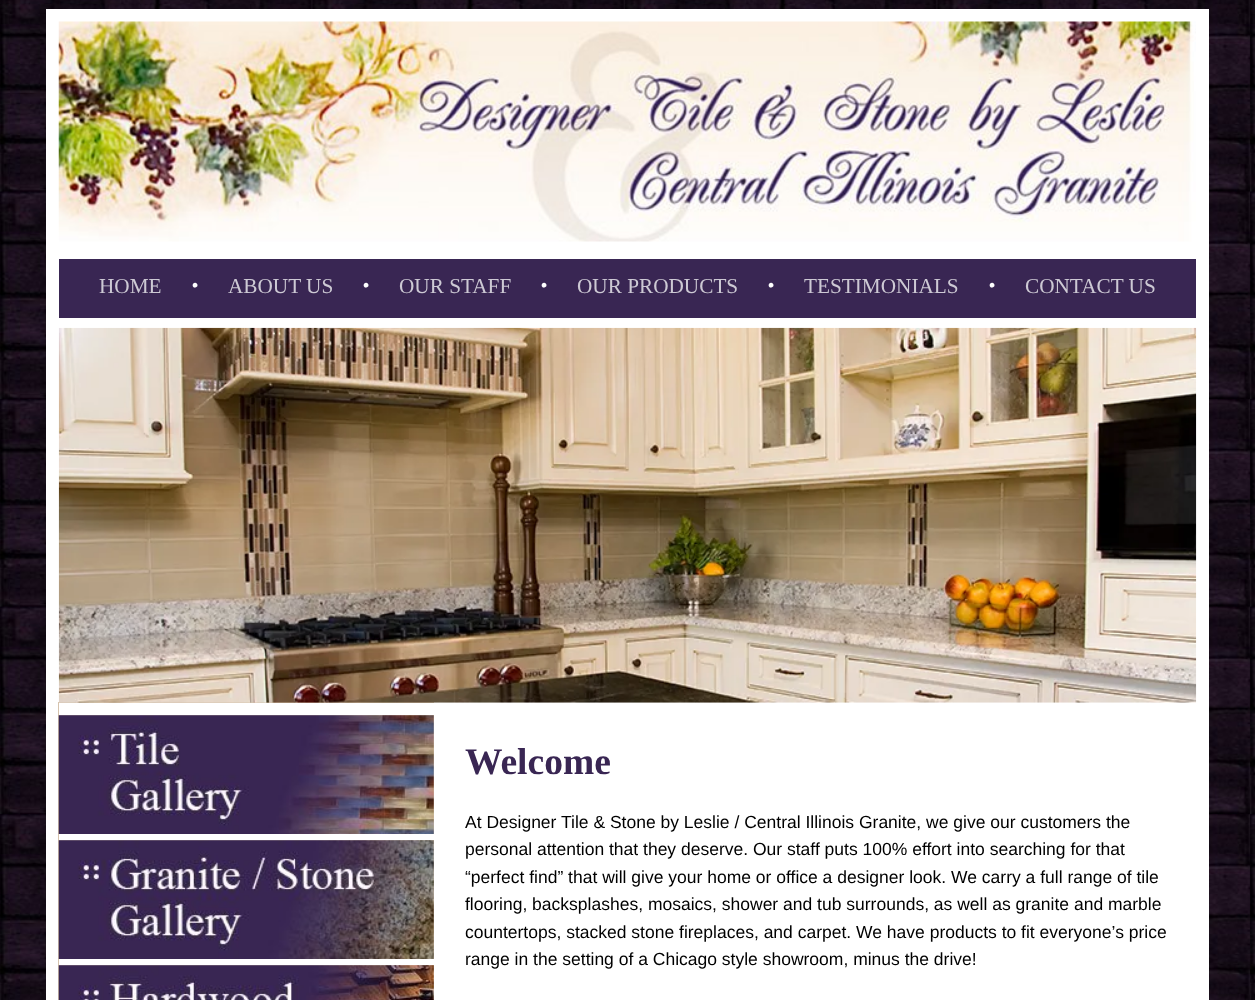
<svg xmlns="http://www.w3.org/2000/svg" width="1255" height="1000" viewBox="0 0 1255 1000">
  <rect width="100%" height="100%" fill="#fff"/>
  <image x="0" y="0" width="1255" height="1000" href="img/1.png"/>
  <path d="M46 9h1163v991H46z" fill="#fff"/>
  <image x="58" y="21" width="1138" height="221" href="img/2.png"/>
  <path d="M59 259h1137v59H59z" fill="#392653"/>
  <path d="M58 702h376v298H58z" fill="#d6c3ad"/>
  <image x="58" y="327" width="1139" height="376" href="img/3.png"/>
  <path d="M59 703h375v12H59z" fill="#fff"/>
  <image x="58" y="715" width="376" height="119" href="img/4.png"/>
  <path d="M59 834h375v6H59z" fill="#fff"/>
  <image x="58" y="840" width="376" height="119" href="img/5.png"/>
  <path d="M59 959h375v6H59z" fill="#fff"/>
  <image x="58" y="965" width="376" height="35" href="img/6.png"/>
  <text x="99" y="293" font-family="Liberation Serif" font-size="21.25" fill="#cdc9d4">HOME</text>
  <text x="192" y="291" font-family="Liberation Sans" font-size="17.5" fill="#fff">•</text>
  <text x="228" y="293" font-family="Liberation Serif" font-size="21.25" fill="#cdc9d4">ABOUT US</text>
  <text x="363" y="291" font-family="Liberation Sans" font-size="17.5" fill="#fff">•</text>
  <text x="399" y="293" font-family="Liberation Serif" font-size="21.25" fill="#cdc9d4">OUR STAFF</text>
  <text x="541" y="291" font-family="Liberation Sans" font-size="17.5" fill="#fff">•</text>
  <text x="577" y="293" font-family="Liberation Serif" font-size="21.25" fill="#cdc9d4">OUR PRODUCTS</text>
  <text x="768" y="291" font-family="Liberation Sans" font-size="17.5" fill="#fff">•</text>
  <text x="804" y="293" font-family="Liberation Serif" font-size="21.25" fill="#cdc9d4">TESTIMONIALS</text>
  <text x="989" y="291" font-family="Liberation Sans" font-size="17.5" fill="#fff">•</text>
  <text x="1025" y="293" font-family="Liberation Serif" font-size="21.25" fill="#cdc9d4">CONTACT US</text>
  <text x="465" y="774" font-family="Liberation Serif" font-size="37.5" font-weight="bold" fill="#392653">Welcome</text>
  <g font-family="Liberation Sans" font-size="17.5" fill="#000">
    <text x="465" y="828">At Designer Tile &amp; Stone by Leslie / Central Illinois Granite, we give our customers the</text>
    <text x="465" y="855">personal attention that they deserve. Our staff puts 100% effort into searching for that</text>
    <text x="465" y="883">“perfect find” that will give your home or office a designer look. We carry a full range of tile</text>
    <text x="465" y="910">flooring, backsplashes, mosaics, shower and tub surrounds, as well as granite and marble</text>
    <text x="465" y="938">countertops, stacked stone fireplaces, and carpet. We have products to fit everyone’s price</text>
    <text x="465" y="965">range in the setting of a Chicago style showroom, minus the drive!</text>
  </g>
</svg>
